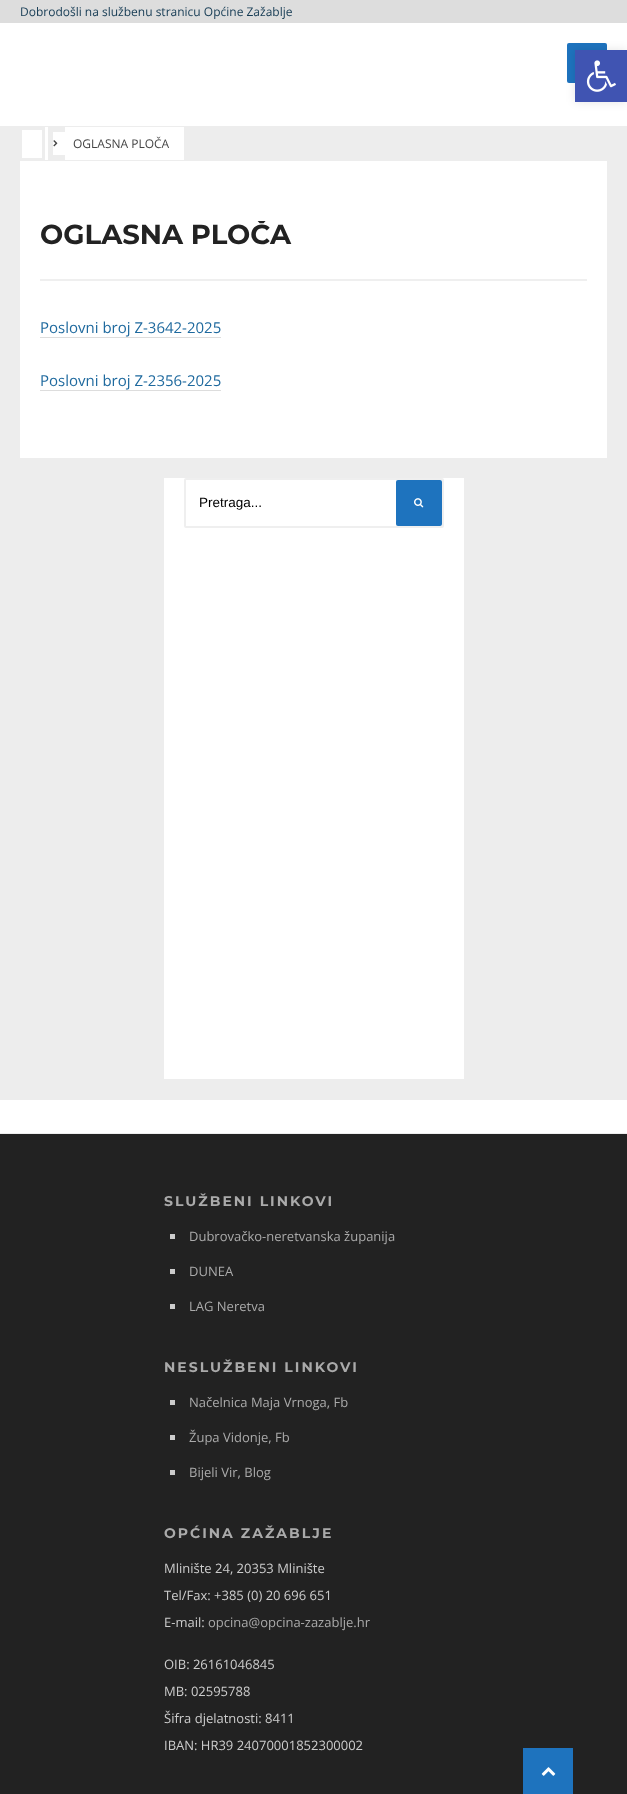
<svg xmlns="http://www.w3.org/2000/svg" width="627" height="1794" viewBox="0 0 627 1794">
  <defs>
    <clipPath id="clip1"><path d="M40 221h547v28H40z"/></clipPath>
  </defs>
  <rect width="100%" height="100%" fill="#ededed"/>
  <path d="M0 0h627v23H0z" fill="#ddd"/>
  <path d="M0 23h627v103H0z" fill="#fff"/>
  <rect x="567" y="43" width="40" height="40" rx="2" fill="#1e73be"/>
  <path d="M22 130h20v28H22z" fill="#fff"/>
  <path d="M45 127h3v33H45z" fill="#fff"/>
  <path d="M53 132h12v23H53z" fill="#fff"/>
  <image x="53" y="140" width="5" height="7" href="img/1.png"/>
  <path d="M65 127h119v33H65z" fill="#fff"/>
  <path d="M20 161h587v297H20z" fill="#fff"/>
  <path d="M40 279h547v2H40z" fill="#efefef"/>
  <path d="M40 337h181v1H40z" fill="#ddd"/>
  <path d="M40 390h181v1H40z" fill="#ddd"/>
  <path d="M164 478h300v601H164z" fill="#fff"/>
  <rect x="185" y="479" width="258" height="48" rx="1" fill="none" stroke="#efefef" stroke-width="2"/>
  <rect x="396" y="480" width="46" height="46" rx="2" fill="#1e73be"/>
  <image x="414" y="498" width="10" height="10" href="img/2.png"/>
  <path d="M0 1100h627v33H0z" fill="#fff"/>
  <path d="M0 1134h627v660H0z" fill="#222"/>
  <path d="M170 1234h5v5H170z" fill="#ccc"/>
  <path d="M170 1269h5v5H170z" fill="#ccc"/>
  <path d="M170 1304h5v5H170z" fill="#ccc"/>
  <path d="M170 1400h5v5H170z" fill="#ccc"/>
  <path d="M170 1435h5v5H170z" fill="#ccc"/>
  <path d="M170 1470h5v5H170z" fill="#ccc"/>
  <path d="M523 1748h50v46H523z" fill="#1e73be"/>
  <image x="541" y="1767" width="15" height="9" href="img/3.png"/>
  <path d="M575 50h52v52H575z" fill="#0000001a" filter="blur(5px)"/>
  <path d="M575 50h52v52H575z" fill="#4054b2"/>
  <image x="586" y="60" width="30" height="32" href="img/4.png"/>
  <text x="20" y="16" font-family="Open Sans" font-size="12" fill="#143a53">Dobrodošli na službenu stranicu Općine Zažablje</text>
  <text x="73" y="148" font-family="Open Sans" font-size="12" fill="#444">OGLASNA PLOČA</text>
  <g clip-path="url(#clip1)">
    <text x="40" y="244" font-family="Montserrat" font-size="27.5" font-weight="bold" fill="#222">OGLASNA PLOČA</text>
  </g>
  <g font-family="Open Sans" font-size="15" fill="#1e699e">
    <text x="40" y="333">Poslovni broj Z-3642-2025</text>
    <text x="40" y="386">Poslovni broj Z-2356-2025</text>
  </g>
  <text x="199" y="507" font-family="Liberation Sans" font-size="13.5" fill="#000">Pretraga...</text>
  <text x="164" y="1206" font-family="Montserrat" font-size="14" font-weight="bold" letter-spacing="2" fill="#aaa">SLUŽBENI LINKOVI</text>
  <g font-family="Open Sans" font-size="13" fill="#aaa">
    <text x="189" y="1241">Dubrovačko-neretvanska županija</text>
    <text x="189" y="1276">DUNEA</text>
    <text x="189" y="1311">LAG Neretva</text>
  </g>
  <text x="164" y="1372" font-family="Montserrat" font-size="14" font-weight="bold" letter-spacing="2" fill="#aaa">NESLUŽBENI LINKOVI</text>
  <g font-family="Open Sans" font-size="13" fill="#aaa">
    <text x="189" y="1407">Načelnica Maja Vrnoga, Fb</text>
    <text x="189" y="1442">Župa Vidonje, Fb</text>
    <text x="189" y="1477">Bijeli Vir, Blog</text>
  </g>
  <text x="164" y="1538" font-family="Montserrat" font-size="14" font-weight="bold" letter-spacing="2" fill="#aaa">OPĆINA ZAŽABLJE</text>
  <g font-family="Open Sans" font-size="13" fill="#ccc">
    <text x="164" y="1573">Mlinište 24, 20353 Mlinište</text>
    <text x="164" y="1600">Tel/Fax: +385 (0) 20 696 651</text>
    <text x="164" y="1627">E-mail:</text>
  </g>
  <text x="208" y="1627" font-family="Open Sans" font-size="13" fill="#aaa">opcina@opcina-zazablje.hr</text>
  <g font-family="Open Sans" font-size="13" fill="#ccc">
    <text x="164" y="1669">OIB: 26161046845</text>
    <text x="164" y="1696">MB: 02595788</text>
    <text x="164" y="1723">Šifra djelatnosti: 8411</text>
    <text x="164" y="1750">IBAN: HR39 24070001852300002</text>
  </g>
</svg>
